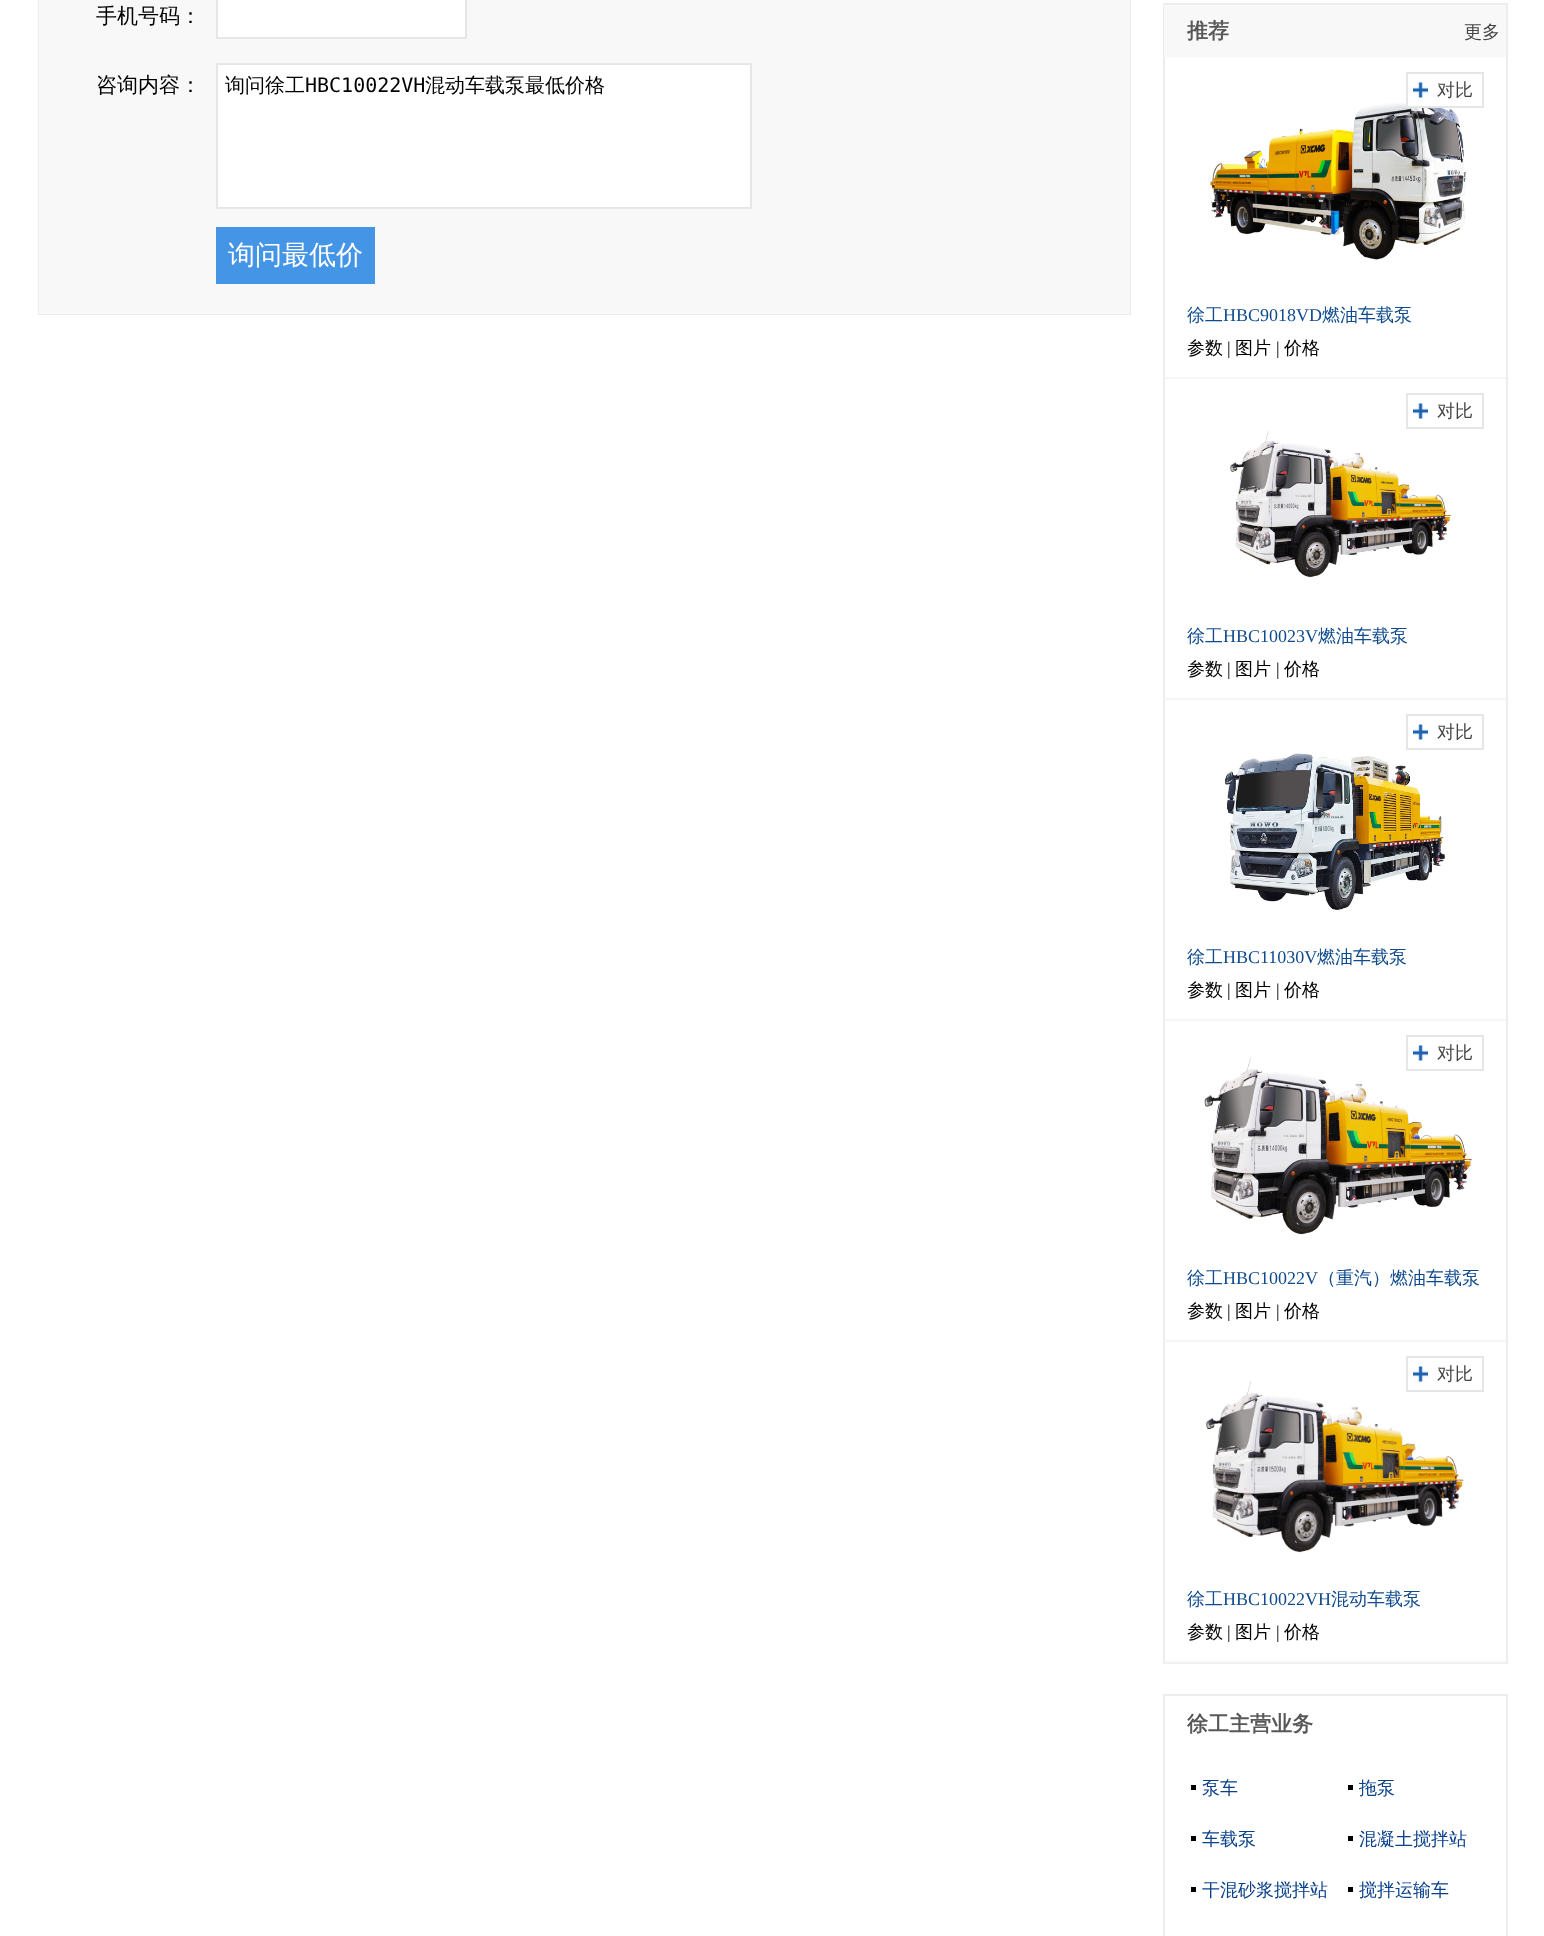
<svg xmlns="http://www.w3.org/2000/svg" width="1544" height="1936" viewBox="0 0 1544 1936">
  <rect width="100%" height="100%" fill="#fff"/>
  <path d="M39 -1h1091v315H39z" fill="none" stroke="#ededed" stroke-width="2"/>
  <path d="M39 0h1091v314H39z" fill="#f8f8f8"/>
  <path d="M217 -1h249v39H217z" fill="#fff" stroke="#e6e6e6" stroke-width="2"/>
  <path d="M217 64h534v144H217z" fill="#fff" stroke="#e6e6e6" stroke-width="2"/>
  <path d="M216 227h159v57H216z" fill="#4595e6"/>
  <path d="M1164 4h343v1659H1164z" fill="none" stroke="#ededed" stroke-width="2"/>
  <path d="M1164 5h342v52H1164z" fill="#f8f8f8"/>
  <path d="M1164 377h342v2H1164z" fill="#f5f5f5"/>
  <image x="1210" y="99" width="257" height="161" href="img/2.png"/>
  <path d="M1408 99h31v7H1408z" fill="#fff"/>
  <image x="1413" y="82" width="15" height="16" href="img/1.png"/>
  <path d="M1407 73h76v34H1407z" fill="none" stroke="#e6e6e6" stroke-width="2"/>
  <path d="M1164 698h342v2H1164z" fill="#f5f5f5"/>
  <image x="1413" y="403" width="15" height="16" href="img/1.png"/>
  <path d="M1407 394h76v34H1407z" fill="none" stroke="#e6e6e6" stroke-width="2"/>
  <image x="1230" y="431" width="222" height="147" href="img/3.png"/>
  <path d="M1164 1019h342v2H1164z" fill="#f5f5f5"/>
  <image x="1413" y="724" width="15" height="16" href="img/1.png"/>
  <path d="M1407 715h76v34H1407z" fill="none" stroke="#e6e6e6" stroke-width="2"/>
  <image x="1225" y="753" width="221" height="157" href="img/4.png"/>
  <path d="M1164 1340h342v2H1164z" fill="#f5f5f5"/>
  <image x="1204" y="1058" width="268" height="177" href="img/5.png"/>
  <image x="1413" y="1045" width="15" height="16" href="img/1.png"/>
  <path d="M1407 1036h76v34H1407z" fill="none" stroke="#e6e6e6" stroke-width="2"/>
  <path d="M1164 1661h342v2H1164z" fill="#f5f5f5"/>
  <image x="1206" y="1381" width="258" height="172" href="img/6.png"/>
  <image x="1413" y="1366" width="15" height="16" href="img/1.png"/>
  <path d="M1407 1357h76v34H1407z" fill="none" stroke="#e6e6e6" stroke-width="2"/>
  <path d="M1164 1695h343v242H1164z" fill="none" stroke="#ededed" stroke-width="2"/>
  <path d="M1191 1785h5v5H1191z" fill="#000"/>
  <path d="M1348 1785h5v5H1348z" fill="#000"/>
  <path d="M1191 1836h5v5H1191z" fill="#000"/>
  <path d="M1348 1836h5v5H1348z" fill="#000"/>
  <path d="M1191 1887h5v5H1191z" fill="#000"/>
  <path d="M1348 1887h5v5H1348z" fill="#000"/>
  <g font-family="WenQuanYi Zen Hei" font-size="21" font-weight="500" fill="#000">
    <text x="96" y="23">手机号码：</text>
    <text x="96" y="92">咨询内容：</text>
  </g>
  <text x="225" y="92" font-family="WenQuanYi Zen Hei" font-size="20" font-weight="500" fill="#000">询问徐工</text>
  <text x="305" y="92" font-family="DejaVu Sans Mono" font-size="20" fill="#000">HBC10022VH</text>
  <text x="425" y="92" font-family="WenQuanYi Zen Hei" font-size="20" font-weight="500" fill="#000">混动车载泵最低价格</text>
  <text x="228" y="264" font-family="WenQuanYi Zen Hei" font-size="27" font-weight="500" fill="#fff">询问最低价</text>
  <text x="1187" y="38" font-family="WenQuanYi Zen Hei" font-size="21" font-weight="bold" fill="#585858">推荐</text>
  <g font-family="WenQuanYi Zen Hei" font-size="18" font-weight="500" fill="#444">
    <text x="1464" y="38">更多</text>
    <text x="1437" y="96">对比</text>
  </g>
  <text x="1187" y="321" font-family="WenQuanYi Zen Hei" font-size="18" font-weight="500" fill="#104b8e">徐工</text>
  <text x="1223" y="321" font-family="Liberation Serif" font-size="18" fill="#104b8e">HBC9018VD</text>
  <text x="1322" y="321" font-family="WenQuanYi Zen Hei" font-size="18" font-weight="500" fill="#104b8e">燃油车载泵</text>
  <text x="1187" y="354" font-family="WenQuanYi Zen Hei" font-size="18" font-weight="500" fill="#000">参数</text>
  <text x="1227" y="354" font-family="Liberation Serif" font-size="18" fill="#000">|</text>
  <text x="1235" y="354" font-family="WenQuanYi Zen Hei" font-size="18" font-weight="500" fill="#000">图片</text>
  <text x="1276" y="354" font-family="Liberation Serif" font-size="18" fill="#000">|</text>
  <text x="1284" y="354" font-family="WenQuanYi Zen Hei" font-size="18" font-weight="500" fill="#000">价格</text>
  <text x="1437" y="417" font-family="WenQuanYi Zen Hei" font-size="18" font-weight="500" fill="#444">对比</text>
  <text x="1187" y="642" font-family="WenQuanYi Zen Hei" font-size="18" font-weight="500" fill="#104b8e">徐工</text>
  <text x="1223" y="642" font-family="Liberation Serif" font-size="18" fill="#104b8e">HBC10023V</text>
  <text x="1318" y="642" font-family="WenQuanYi Zen Hei" font-size="18" font-weight="500" fill="#104b8e">燃油车载泵</text>
  <text x="1187" y="675" font-family="WenQuanYi Zen Hei" font-size="18" font-weight="500" fill="#000">参数</text>
  <text x="1227" y="675" font-family="Liberation Serif" font-size="18" fill="#000">|</text>
  <text x="1235" y="675" font-family="WenQuanYi Zen Hei" font-size="18" font-weight="500" fill="#000">图片</text>
  <text x="1276" y="675" font-family="Liberation Serif" font-size="18" fill="#000">|</text>
  <text x="1284" y="675" font-family="WenQuanYi Zen Hei" font-size="18" font-weight="500" fill="#000">价格</text>
  <text x="1437" y="738" font-family="WenQuanYi Zen Hei" font-size="18" font-weight="500" fill="#444">对比</text>
  <text x="1187" y="963" font-family="WenQuanYi Zen Hei" font-size="18" font-weight="500" fill="#104b8e">徐工</text>
  <text x="1223" y="963" font-family="Liberation Serif" font-size="18" fill="#104b8e">HBC11030V</text>
  <text x="1317" y="963" font-family="WenQuanYi Zen Hei" font-size="18" font-weight="500" fill="#104b8e">燃油车载泵</text>
  <text x="1187" y="996" font-family="WenQuanYi Zen Hei" font-size="18" font-weight="500" fill="#000">参数</text>
  <text x="1227" y="996" font-family="Liberation Serif" font-size="18" fill="#000">|</text>
  <text x="1235" y="996" font-family="WenQuanYi Zen Hei" font-size="18" font-weight="500" fill="#000">图片</text>
  <text x="1276" y="996" font-family="Liberation Serif" font-size="18" fill="#000">|</text>
  <text x="1284" y="996" font-family="WenQuanYi Zen Hei" font-size="18" font-weight="500" fill="#000">价格</text>
  <text x="1437" y="1059" font-family="WenQuanYi Zen Hei" font-size="18" font-weight="500" fill="#444">对比</text>
  <text x="1187" y="1284" font-family="WenQuanYi Zen Hei" font-size="18" font-weight="500" fill="#104b8e">徐工</text>
  <text x="1223" y="1284" font-family="Liberation Serif" font-size="18" fill="#104b8e">HBC10022V</text>
  <text x="1318" y="1284" font-family="WenQuanYi Zen Hei" font-size="18" font-weight="500" fill="#104b8e">（重汽）燃油车载泵</text>
  <text x="1187" y="1317" font-family="WenQuanYi Zen Hei" font-size="18" font-weight="500" fill="#000">参数</text>
  <text x="1227" y="1317" font-family="Liberation Serif" font-size="18" fill="#000">|</text>
  <text x="1235" y="1317" font-family="WenQuanYi Zen Hei" font-size="18" font-weight="500" fill="#000">图片</text>
  <text x="1276" y="1317" font-family="Liberation Serif" font-size="18" fill="#000">|</text>
  <text x="1284" y="1317" font-family="WenQuanYi Zen Hei" font-size="18" font-weight="500" fill="#000">价格</text>
  <text x="1437" y="1380" font-family="WenQuanYi Zen Hei" font-size="18" font-weight="500" fill="#444">对比</text>
  <text x="1187" y="1605" font-family="WenQuanYi Zen Hei" font-size="18" font-weight="500" fill="#104b8e">徐工</text>
  <text x="1223" y="1605" font-family="Liberation Serif" font-size="18" fill="#104b8e">HBC10022VH</text>
  <text x="1331" y="1605" font-family="WenQuanYi Zen Hei" font-size="18" font-weight="500" fill="#104b8e">混动车载泵</text>
  <text x="1187" y="1638" font-family="WenQuanYi Zen Hei" font-size="18" font-weight="500" fill="#000">参数</text>
  <text x="1227" y="1638" font-family="Liberation Serif" font-size="18" fill="#000">|</text>
  <text x="1235" y="1638" font-family="WenQuanYi Zen Hei" font-size="18" font-weight="500" fill="#000">图片</text>
  <text x="1276" y="1638" font-family="Liberation Serif" font-size="18" fill="#000">|</text>
  <text x="1284" y="1638" font-family="WenQuanYi Zen Hei" font-size="18" font-weight="500" fill="#000">价格</text>
  <text x="1187" y="1731" font-family="WenQuanYi Zen Hei" font-size="21" font-weight="bold" fill="#585858">徐工主营业务</text>
  <g font-family="WenQuanYi Zen Hei" font-size="18" font-weight="500" fill="#09408a">
    <text x="1202" y="1794">泵车</text>
    <text x="1359" y="1794">拖泵</text>
    <text x="1202" y="1845">车载泵</text>
    <text x="1359" y="1845">混凝土搅拌站</text>
    <text x="1202" y="1896">干混砂浆搅拌站</text>
    <text x="1359" y="1896">搅拌运输车</text>
  </g>
</svg>
